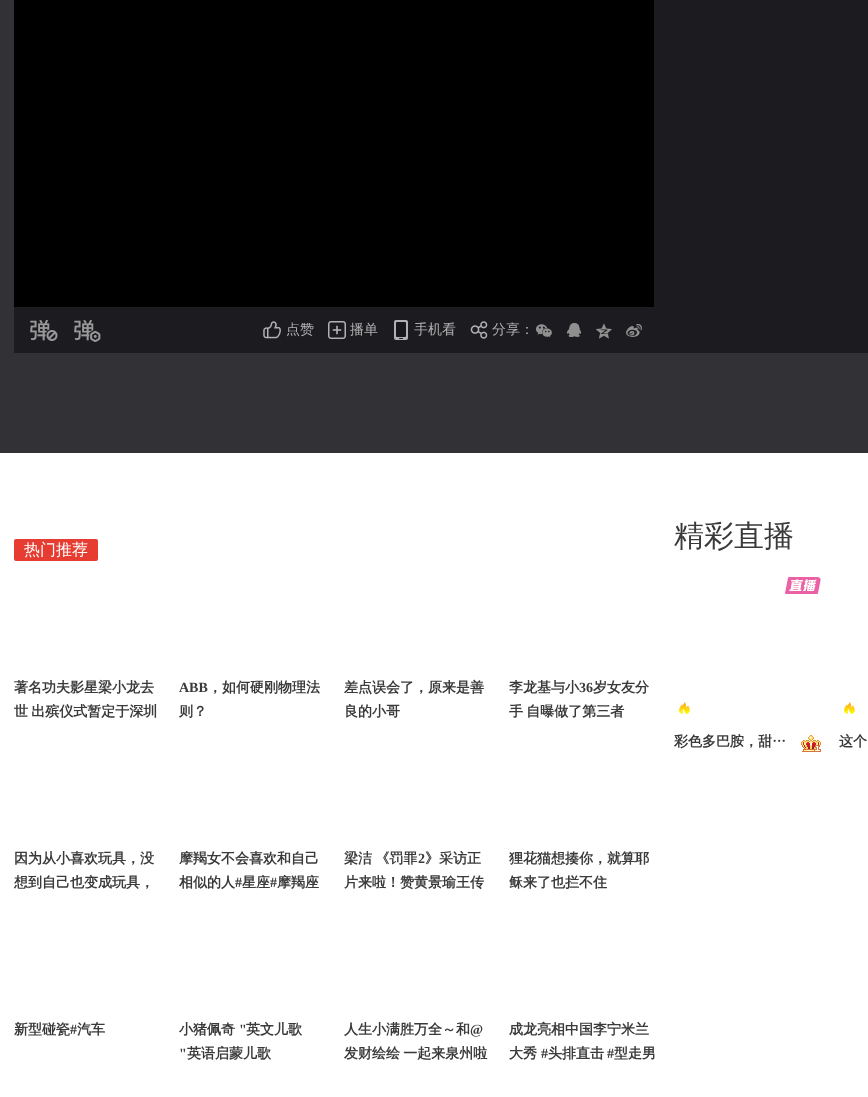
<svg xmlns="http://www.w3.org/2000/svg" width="868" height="1097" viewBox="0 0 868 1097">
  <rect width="100%" height="100%" fill="#fff"/>
  <path d="M0 0h868v453H0z" fill="#313136"/>
  <path d="M14 0h640v307H14z" fill="#000"/>
  <path d="M654 0h214v353H654z" fill="#1c1c20"/>
  <path d="M14 307h640v46H14z" fill="#1c1c20"/>
  <image x="30" y="319" width="28" height="22" href="img/1.png"/>
  <image x="74" y="319" width="27" height="23" href="img/2.png"/>
  <image x="263" y="321" width="18" height="18" href="img/3.png"/>
  <image x="328" y="321" width="18" height="18" href="img/4.png"/>
  <rect x="394" y="320" width="14" height="20" rx="2" fill="#b1b1b1"/>
  <rect x="396" y="322" width="10" height="15" rx="1" fill="#18171e"/>
  <rect x="399" y="338" width="4" height="1" rx="0.5" fill="#18171e"/>
  <image x="470" y="321" width="18" height="18" href="img/5.png"/>
  <image x="535" y="324" width="17" height="14" href="img/6.png"/>
  <image x="567" y="323" width="14" height="14" href="img/7.png"/>
  <image x="596" y="323" width="16" height="16" href="img/8.png"/>
  <image x="626" y="324" width="16" height="13" href="img/9.png"/>
  <rect x="14" y="539" width="84" height="22" rx="2" fill="#e73c31"/>
  <image x="785" y="577" width="36" height="17" href="img/10.png"/>
  <image x="679" y="702" width="11" height="12" href="img/11.png"/>
  <image x="801" y="735" width="20" height="17" href="img/12.png"/>
  <image x="844" y="702" width="11" height="12" href="img/11.png"/>
  <g font-family="WenQuanYi Zen Hei" font-size="14" font-weight="500" fill="#b1b1b1">
    <text x="286" y="334">点赞</text>
    <text x="350" y="334">播单</text>
    <text x="414" y="334">手机看</text>
    <text x="492" y="334">分享：</text>
  </g>
  <text x="24" y="555" font-family="WenQuanYi Zen Hei" font-size="16" font-weight="500" fill="#fff">热门推荐</text>
  <g font-family="WenQuanYi Zen Hei" font-size="14" font-weight="bold" fill="#3a3a3a">
    <text x="14" y="692">著名功夫影星梁小龙去</text>
    <text x="14" y="716" word-spacing="-1">世 出殡仪式暂定于深圳</text>
  </g>
  <text x="179" y="692" font-family="Liberation Serif" font-size="14" font-weight="bold" fill="#3a3a3a">ABB</text>
  <g font-family="WenQuanYi Zen Hei" font-size="14" font-weight="bold" fill="#3a3a3a">
    <text x="208" y="692">，如何硬刚物理法</text>
    <text x="179" y="716">则？</text>
    <text x="344" y="692">差点误会了，原来是善</text>
    <text x="344" y="716">良的小哥</text>
    <text x="509" y="692">李龙基与小</text>
  </g>
  <text x="579" y="692" font-family="Liberation Serif" font-size="14" font-weight="bold" fill="#3a3a3a">36</text>
  <g font-family="WenQuanYi Zen Hei" font-size="14" font-weight="bold" fill="#3a3a3a">
    <text x="593" y="692">岁女友分</text>
    <text x="509" y="716" word-spacing="-1">手 自曝做了第三者</text>
    <text x="14" y="863">因为从小喜欢玩具，没</text>
    <text x="14" y="887">想到自己也变成玩具，</text>
    <text x="179" y="863">摩羯女不会喜欢和自己</text>
    <text x="179" y="887">相似的人</text>
  </g>
  <text x="235" y="887" font-family="Liberation Serif" font-size="14" font-weight="bold" fill="#3a3a3a">#</text>
  <text x="242" y="887" font-family="WenQuanYi Zen Hei" font-size="14" font-weight="bold" fill="#3a3a3a">星座</text>
  <text x="270" y="887" font-family="Liberation Serif" font-size="14" font-weight="bold" fill="#3a3a3a">#</text>
  <g font-family="WenQuanYi Zen Hei" font-size="14" font-weight="bold" fill="#3a3a3a">
    <text x="277" y="887">摩羯座</text>
    <text x="344" y="863" word-spacing="-1">梁洁 《罚罪</text>
  </g>
  <text x="418" y="863" font-family="Liberation Serif" font-size="14" font-weight="bold" fill="#3a3a3a">2</text>
  <g font-family="WenQuanYi Zen Hei" font-size="14" font-weight="bold" fill="#3a3a3a">
    <text x="425" y="863">》采访正</text>
    <text x="344" y="887">片来啦！赞黄景瑜王传</text>
    <text x="509" y="863">狸花猫想揍你，就算耶</text>
    <text x="509" y="887">稣来了也拦不住</text>
    <text x="14" y="1034">新型碰瓷</text>
  </g>
  <text x="70" y="1034" font-family="Liberation Serif" font-size="14" font-weight="bold" fill="#3a3a3a">#</text>
  <g font-family="WenQuanYi Zen Hei" font-size="14" font-weight="bold" fill="#3a3a3a">
    <text x="77" y="1034">汽车</text>
    <text x="179" y="1034">小猪佩奇</text>
  </g>
  <text x="239" y="1034" font-family="Liberation Serif" font-size="14" font-weight="bold" fill="#3a3a3a">"</text>
  <text x="246" y="1034" font-family="WenQuanYi Zen Hei" font-size="14" font-weight="bold" fill="#3a3a3a">英文儿歌</text>
  <text x="179" y="1058" font-family="Liberation Serif" font-size="14" font-weight="bold" fill="#3a3a3a">"</text>
  <g font-family="WenQuanYi Zen Hei" font-size="14" font-weight="bold" fill="#3a3a3a">
    <text x="187" y="1058">英语启蒙儿歌</text>
    <text x="344" y="1034">人生小满胜万全～和</text>
  </g>
  <text x="470" y="1034" font-family="Liberation Serif" font-size="14" font-weight="bold" fill="#3a3a3a">@</text>
  <g font-family="WenQuanYi Zen Hei" font-size="14" font-weight="bold" fill="#3a3a3a">
    <text x="344" y="1058" word-spacing="-1">发财绘绘 一起来泉州啦</text>
    <text x="509" y="1034">成龙亮相中国李宁米兰</text>
    <text x="509" y="1058">大秀</text>
  </g>
  <text x="541" y="1058" font-family="Liberation Serif" font-size="14" font-weight="bold" fill="#3a3a3a">#</text>
  <text x="548" y="1058" font-family="WenQuanYi Zen Hei" font-size="14" font-weight="bold" fill="#3a3a3a">头排直击</text>
  <text x="607" y="1058" font-family="Liberation Serif" font-size="14" font-weight="bold" fill="#3a3a3a">#</text>
  <text x="614" y="1058" font-family="WenQuanYi Zen Hei" font-size="14" font-weight="bold" fill="#3a3a3a">型走男</text>
  <text x="674" y="546" font-family="WenQuanYi Zen Hei" font-size="30" font-weight="500" fill="#3a3a3a">精彩直播</text>
  <g font-family="WenQuanYi Zen Hei" font-size="14" font-weight="bold" fill="#3a3a3a">
    <text x="674" y="746">彩色多巴胺，甜…</text>
    <text x="839" y="746">这个</text>
  </g>
</svg>
